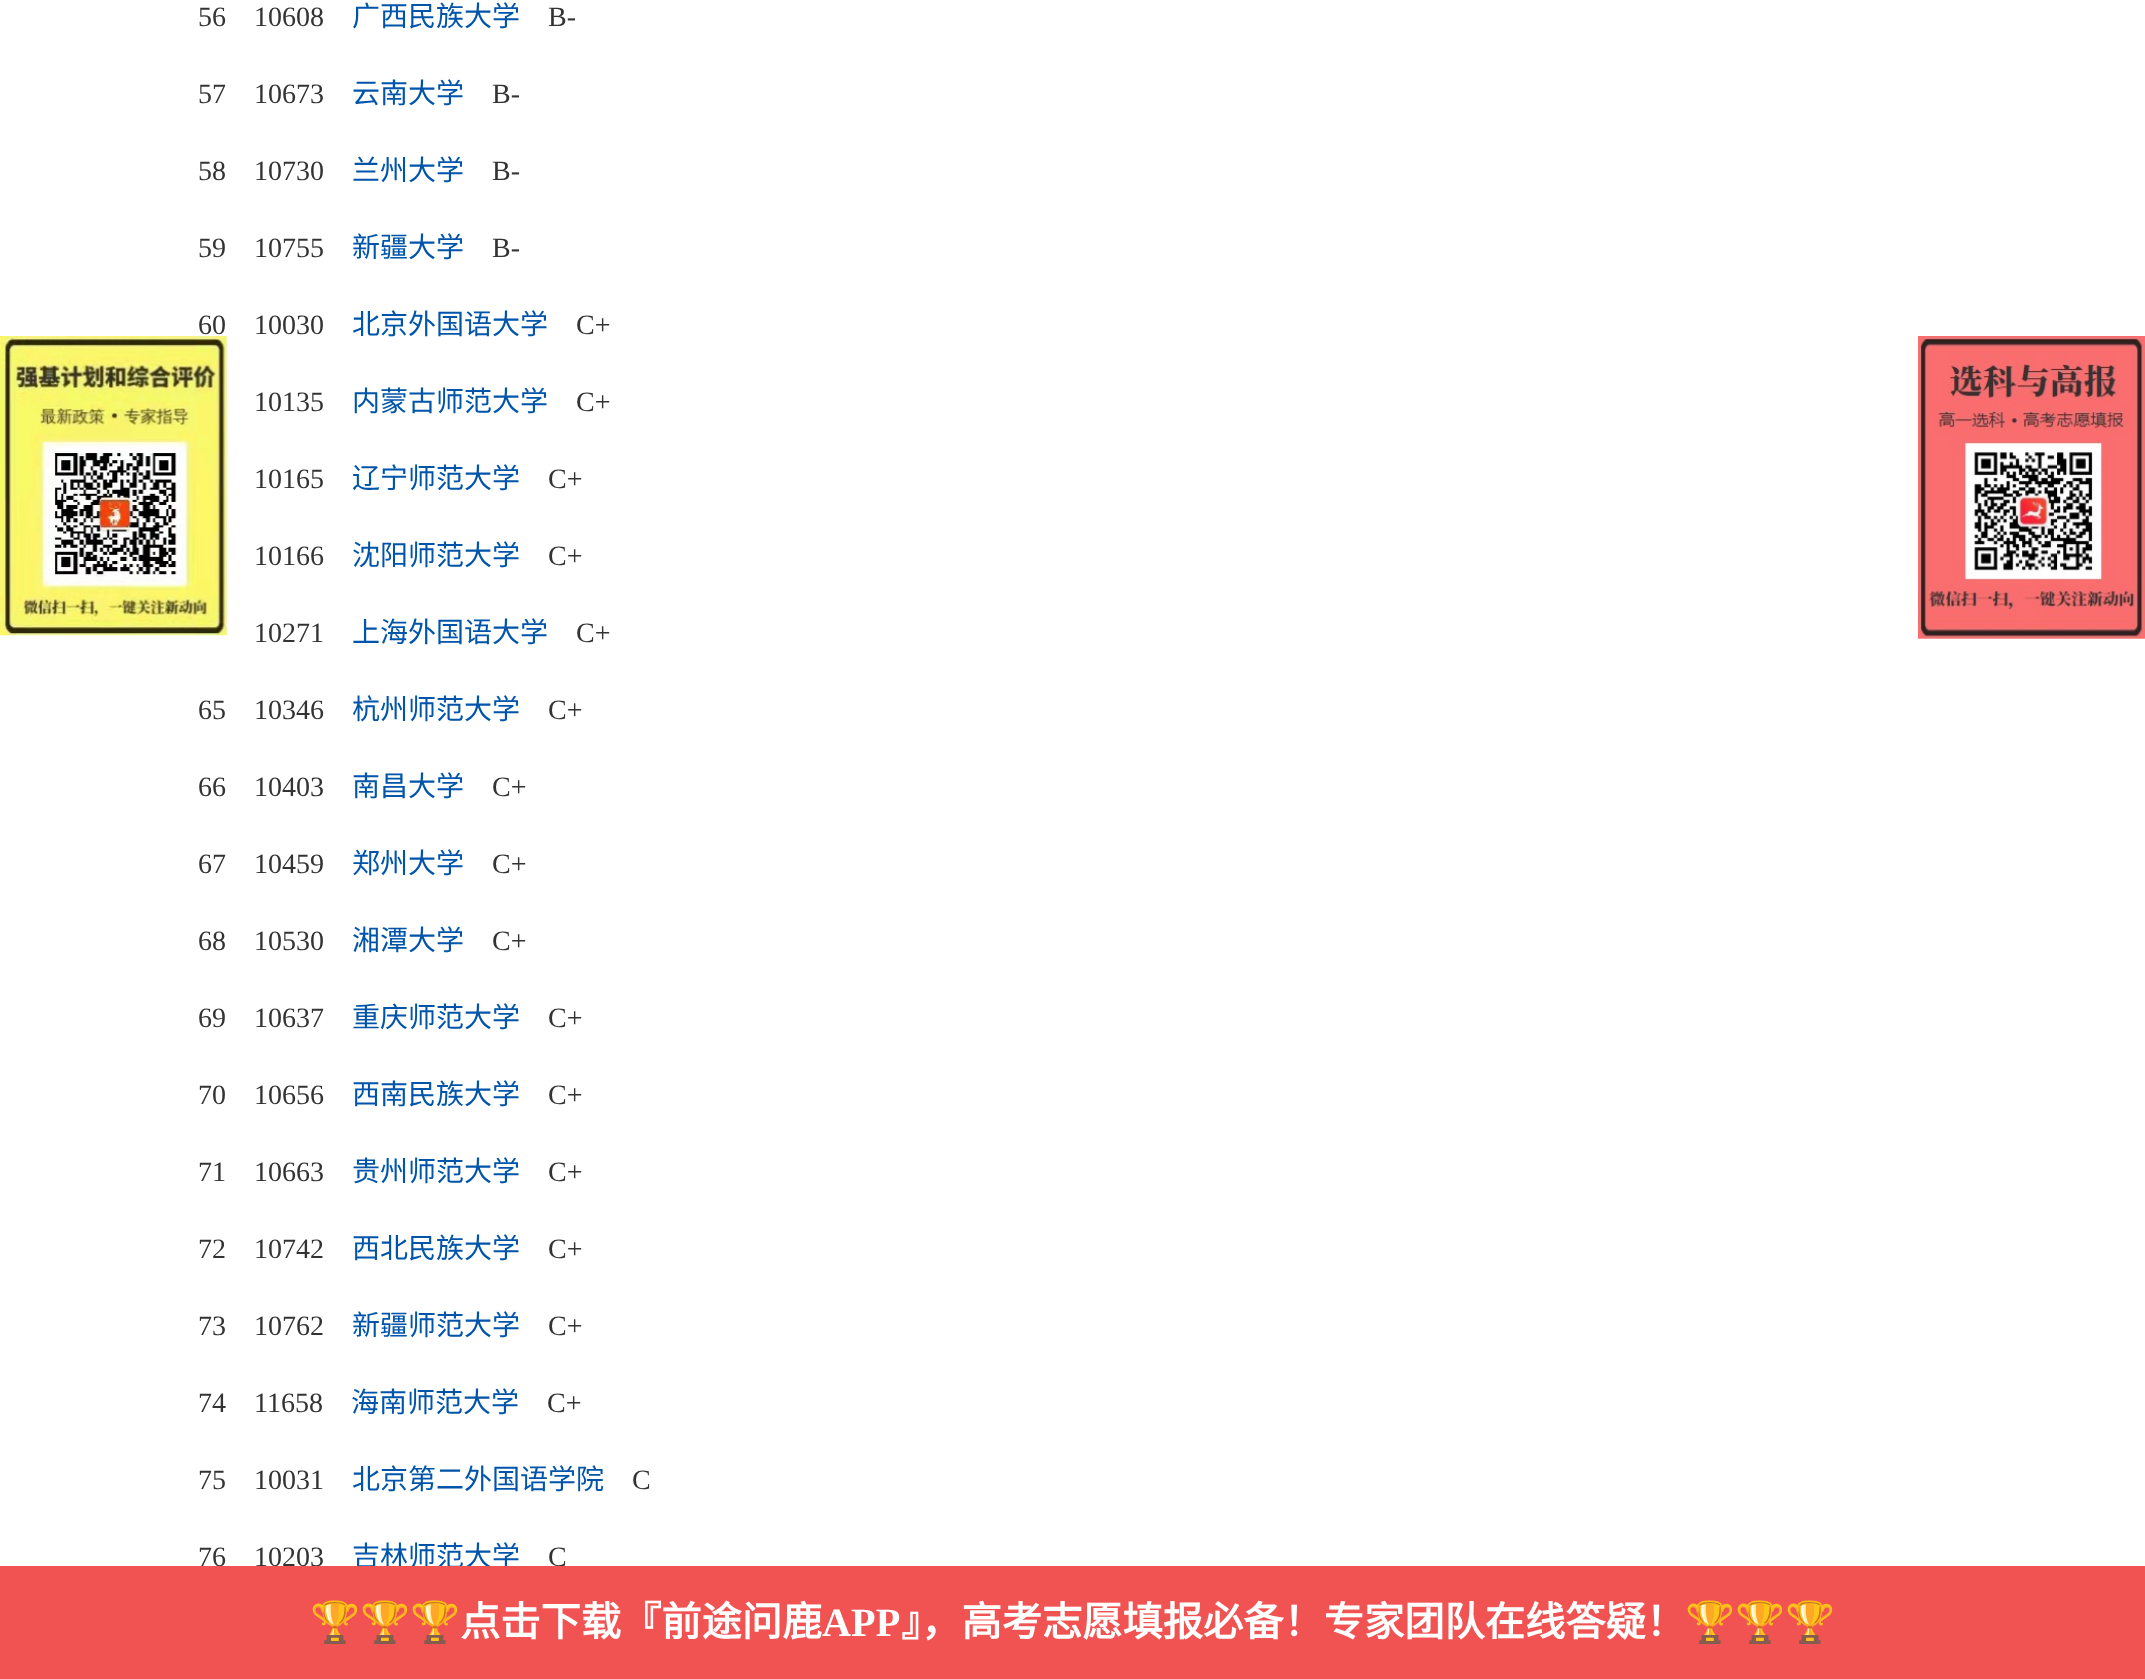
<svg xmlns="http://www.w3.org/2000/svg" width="2145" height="1679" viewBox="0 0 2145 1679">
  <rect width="100%" height="100%" fill="#fff"/>
  <image x="0" y="336" width="228" height="300" href="img/1.png"/>
  <image x="1918" y="336" width="227" height="303" href="img/2.png"/>
  <text x="198" y="26" font-family="Liberation Serif" font-size="28" fill="#333" xml:space="preserve">56    10608</text>
  <text x="352" y="26" font-family="Noto Sans CJK SC" font-size="28" fill="#05a">广西民族大学</text>
  <g font-family="Liberation Serif" font-size="28" fill="#333">
    <text x="548" y="26">B-</text>
    <text x="198" y="103" xml:space="preserve">57    10673</text>
  </g>
  <text x="352" y="103" font-family="Noto Sans CJK SC" font-size="28" fill="#05a">云南大学</text>
  <g font-family="Liberation Serif" font-size="28" fill="#333">
    <text x="492" y="103">B-</text>
    <text x="198" y="180" xml:space="preserve">58    10730</text>
  </g>
  <text x="352" y="180" font-family="Noto Sans CJK SC" font-size="28" fill="#05a">兰州大学</text>
  <g font-family="Liberation Serif" font-size="28" fill="#333">
    <text x="492" y="180">B-</text>
    <text x="198" y="257" xml:space="preserve">59    10755</text>
  </g>
  <text x="352" y="257" font-family="Noto Sans CJK SC" font-size="28" fill="#05a">新疆大学</text>
  <g font-family="Liberation Serif" font-size="28" fill="#333">
    <text x="492" y="257">B-</text>
    <text x="198" y="334" xml:space="preserve">60    10030</text>
  </g>
  <text x="352" y="334" font-family="Noto Sans CJK SC" font-size="28" fill="#05a">北京外国语大学</text>
  <g font-family="Liberation Serif" font-size="28" fill="#333">
    <text x="576" y="334">C+</text>
    <text x="254" y="411">10135</text>
  </g>
  <text x="352" y="411" font-family="Noto Sans CJK SC" font-size="28" fill="#05a">内蒙古师范大学</text>
  <g font-family="Liberation Serif" font-size="28" fill="#333">
    <text x="576" y="411">C+</text>
    <text x="254" y="488">10165</text>
  </g>
  <text x="352" y="488" font-family="Noto Sans CJK SC" font-size="28" fill="#05a">辽宁师范大学</text>
  <g font-family="Liberation Serif" font-size="28" fill="#333">
    <text x="548" y="488">C+</text>
    <text x="254" y="565">10166</text>
  </g>
  <text x="352" y="565" font-family="Noto Sans CJK SC" font-size="28" fill="#05a">沈阳师范大学</text>
  <g font-family="Liberation Serif" font-size="28" fill="#333">
    <text x="548" y="565">C+</text>
    <text x="254" y="642">10271</text>
  </g>
  <text x="352" y="642" font-family="Noto Sans CJK SC" font-size="28" fill="#05a">上海外国语大学</text>
  <g font-family="Liberation Serif" font-size="28" fill="#333">
    <text x="576" y="642">C+</text>
    <text x="198" y="719" xml:space="preserve">65    10346</text>
  </g>
  <text x="352" y="719" font-family="Noto Sans CJK SC" font-size="28" fill="#05a">杭州师范大学</text>
  <g font-family="Liberation Serif" font-size="28" fill="#333">
    <text x="548" y="719">C+</text>
    <text x="198" y="796" xml:space="preserve">66    10403</text>
  </g>
  <text x="352" y="796" font-family="Noto Sans CJK SC" font-size="28" fill="#05a">南昌大学</text>
  <g font-family="Liberation Serif" font-size="28" fill="#333">
    <text x="492" y="796">C+</text>
    <text x="198" y="873" xml:space="preserve">67    10459</text>
  </g>
  <text x="352" y="873" font-family="Noto Sans CJK SC" font-size="28" fill="#05a">郑州大学</text>
  <g font-family="Liberation Serif" font-size="28" fill="#333">
    <text x="492" y="873">C+</text>
    <text x="198" y="950" xml:space="preserve">68    10530</text>
  </g>
  <text x="352" y="950" font-family="Noto Sans CJK SC" font-size="28" fill="#05a">湘潭大学</text>
  <g font-family="Liberation Serif" font-size="28" fill="#333">
    <text x="492" y="950">C+</text>
    <text x="198" y="1027" xml:space="preserve">69    10637</text>
  </g>
  <text x="352" y="1027" font-family="Noto Sans CJK SC" font-size="28" fill="#05a">重庆师范大学</text>
  <g font-family="Liberation Serif" font-size="28" fill="#333">
    <text x="548" y="1027">C+</text>
    <text x="198" y="1104" xml:space="preserve">70    10656</text>
  </g>
  <text x="352" y="1104" font-family="Noto Sans CJK SC" font-size="28" fill="#05a">西南民族大学</text>
  <g font-family="Liberation Serif" font-size="28" fill="#333">
    <text x="548" y="1104">C+</text>
    <text x="198" y="1181" xml:space="preserve">71    10663</text>
  </g>
  <text x="352" y="1181" font-family="Noto Sans CJK SC" font-size="28" fill="#05a">贵州师范大学</text>
  <g font-family="Liberation Serif" font-size="28" fill="#333">
    <text x="548" y="1181">C+</text>
    <text x="198" y="1258" xml:space="preserve">72    10742</text>
  </g>
  <text x="352" y="1258" font-family="Noto Sans CJK SC" font-size="28" fill="#05a">西北民族大学</text>
  <g font-family="Liberation Serif" font-size="28" fill="#333">
    <text x="548" y="1258">C+</text>
    <text x="198" y="1335" xml:space="preserve">73    10762</text>
  </g>
  <text x="352" y="1335" font-family="Noto Sans CJK SC" font-size="28" fill="#05a">新疆师范大学</text>
  <g font-family="Liberation Serif" font-size="28" fill="#333">
    <text x="548" y="1335">C+</text>
    <text x="198" y="1412" xml:space="preserve">74    11658</text>
  </g>
  <text x="351" y="1412" font-family="Noto Sans CJK SC" font-size="28" fill="#05a">海南师范大学</text>
  <g font-family="Liberation Serif" font-size="28" fill="#333">
    <text x="547" y="1412">C+</text>
    <text x="198" y="1489" xml:space="preserve">75    10031</text>
  </g>
  <text x="352" y="1489" font-family="Noto Sans CJK SC" font-size="28" fill="#05a">北京第二外国语学院</text>
  <g font-family="Liberation Serif" font-size="28" fill="#333">
    <text x="632" y="1489">C</text>
    <text x="198" y="1566" xml:space="preserve">76    10203</text>
  </g>
  <text x="352" y="1566" font-family="Noto Sans CJK SC" font-size="28" fill="#05a">吉林师范大学</text>
  <text x="548" y="1566" font-family="Liberation Serif" font-size="28" fill="#333">C</text>
  <path d="M0 1566h2145v113H0z" fill="#f15353"/>
  <text x="310" y="1636" font-family="Noto Color Emoji" font-size="40.25" font-weight="bold" fill="#fff">🏆🏆🏆</text>
  <text x="460" y="1636" font-family="Noto Sans CJK SC" font-size="40.25" font-weight="bold" fill="#fff">点击下载『前途问鹿</text>
  <text x="822" y="1636" font-family="Liberation Serif" font-size="40.25" font-weight="bold" fill="#fff">APP</text>
  <text x="901" y="1636" font-family="Noto Sans CJK SC" font-size="40.25" font-weight="bold" fill="#fff">』，高考志愿填报必备！专家团队在线答疑！</text>
  <text x="1685" y="1636" font-family="Noto Color Emoji" font-size="40.25" font-weight="bold" fill="#fff">🏆🏆🏆</text>
</svg>
